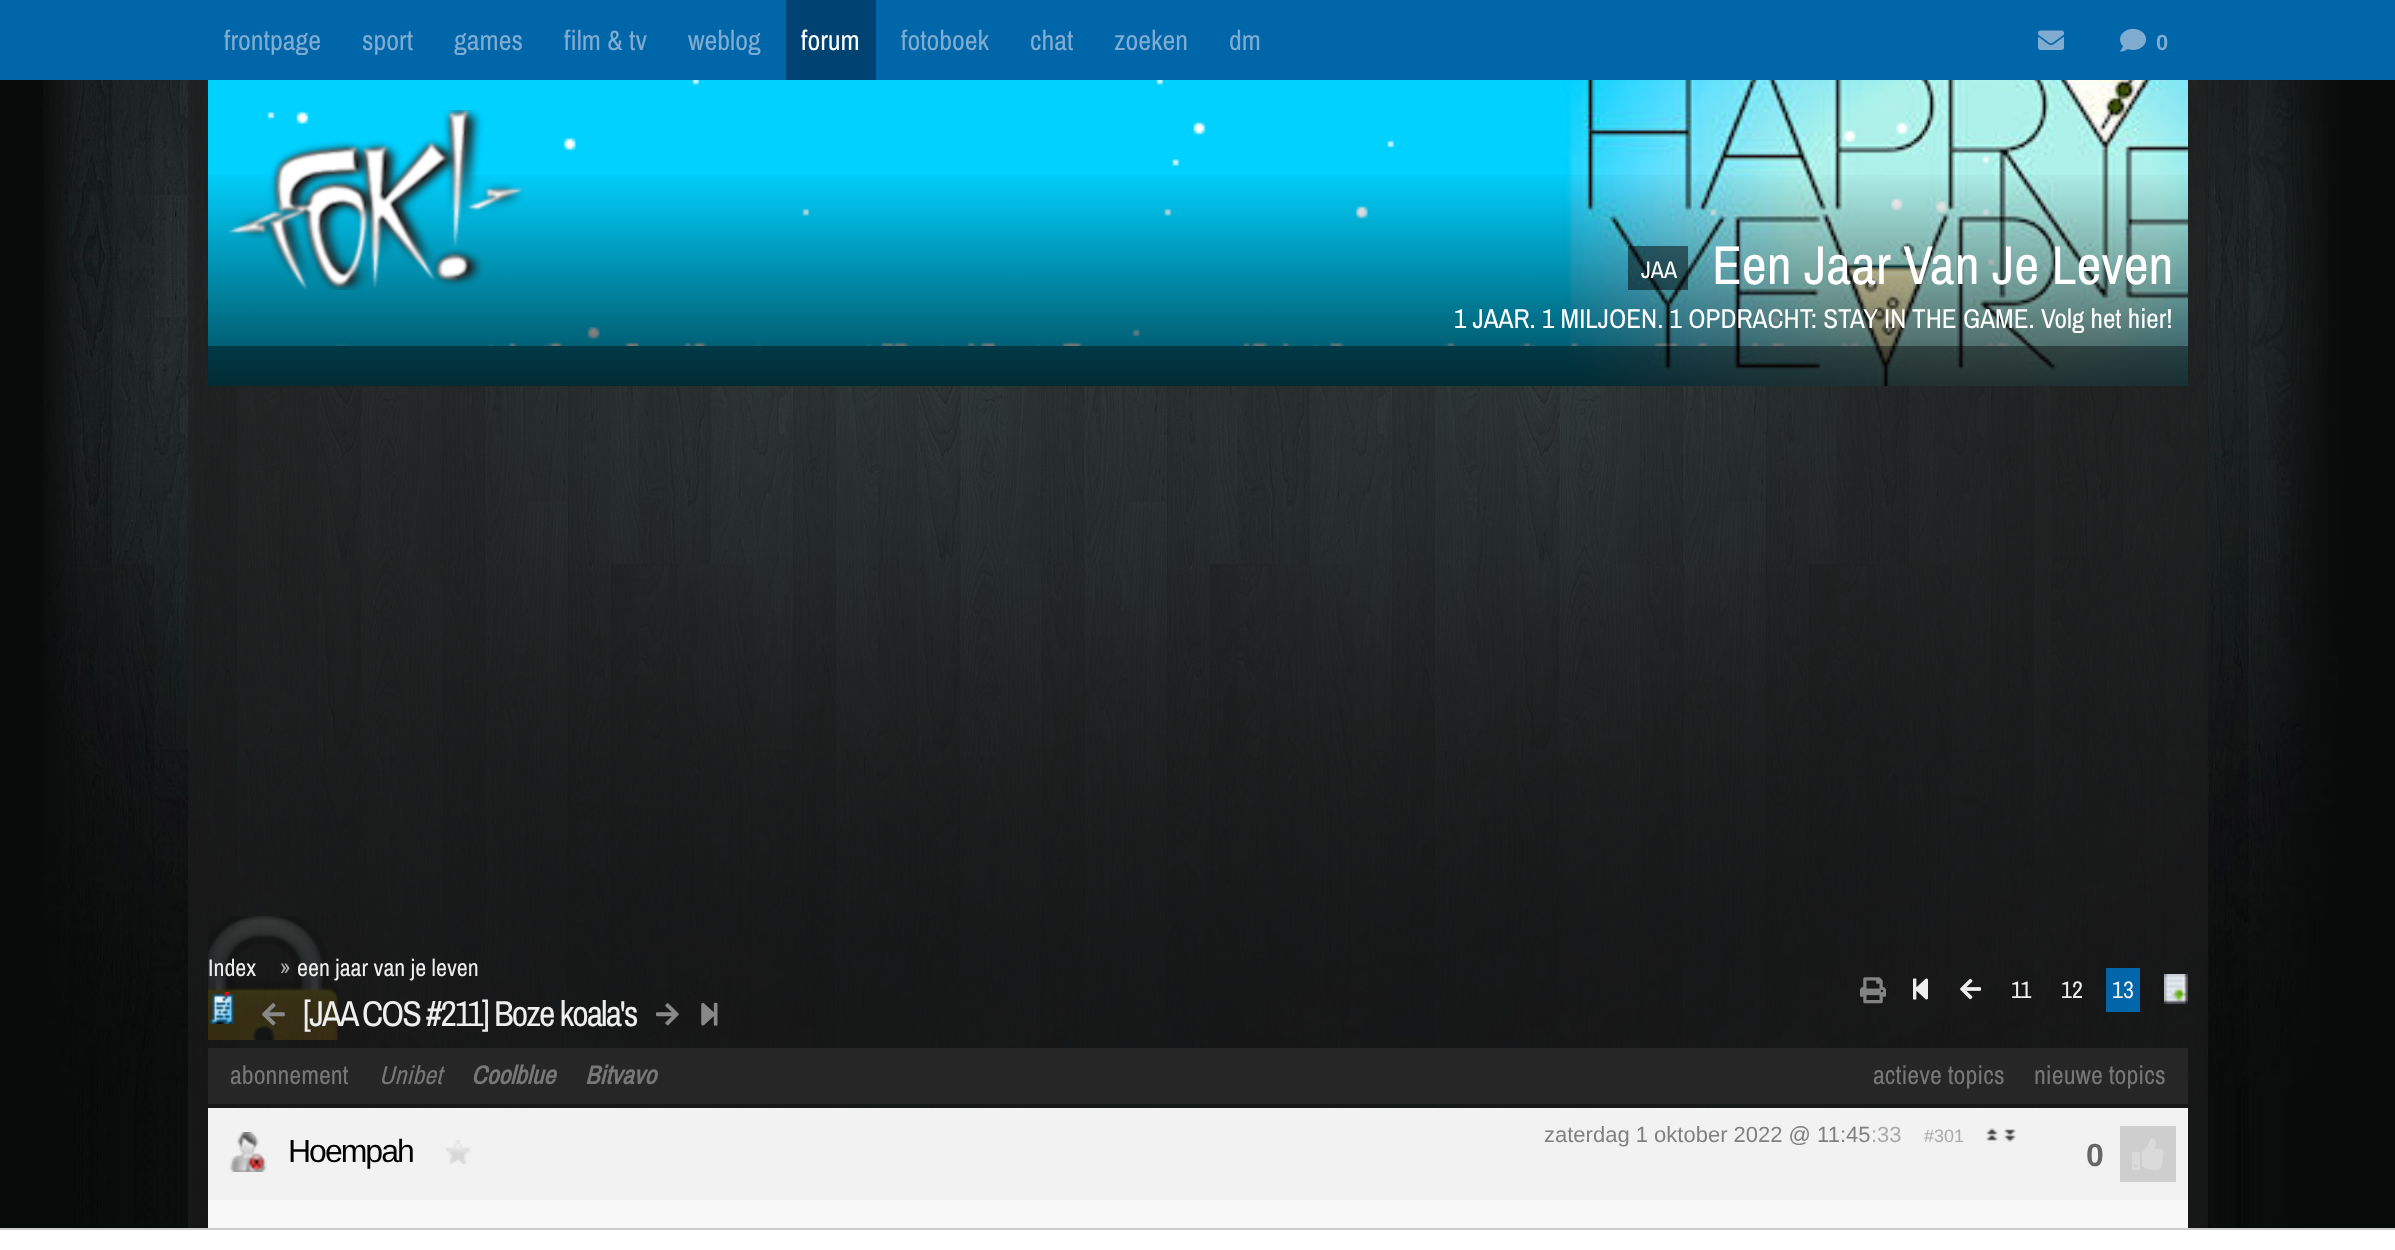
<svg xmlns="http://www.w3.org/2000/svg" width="2395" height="1250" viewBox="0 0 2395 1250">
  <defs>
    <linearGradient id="g1" gradientUnits="userSpaceOnUse" x1="1198" y1="132" x2="1198" y2="386"><stop offset="0" stop-color="#000" stop-opacity="0"/><stop offset="0.14" stop-color="#000" stop-opacity="0"/><stop offset="0.71" stop-color="#000" stop-opacity="0.44"/><stop offset="0.99" stop-color="#000" stop-opacity="0.65"/></linearGradient>
  </defs>
  <rect width="100%" height="100%" fill="#fff"/>
  <path d="M0 0h2395v80H0z" fill="#06a"/>
  <path d="M786 0h90v80H786z" fill="#004373"/>
  <image x="2038" y="30" width="26" height="20" href="img/1.png"/>
  <image x="2120" y="28" width="26" height="24" href="img/2.png"/>
  <image x="0" y="80" width="2395" height="1148" href="img/3.png"/>
  <path d="M188 80h2020v1148H188z" fill="#1e1e1e99"/>
  <image x="208" y="80" width="1980" height="306" href="img/4.png"/>
  <image x="267" y="80" width="1921" height="266" href="img/5.png"/>
  <path d="M208 175h1980v211H208z" fill="url(#g1)"/>
  <image x="228" y="110" width="296" height="180" href="img/6.png"/>
  <path d="M1628 246h60v44H1628z" fill="#00000080"/>
  <path d="M208 346h1980v40H208z" fill="#00000066"/>
  <image x="208" y="916" width="130" height="124" href="img/7.png"/>
  <image x="1860" y="977" width="26" height="27" href="img/8.png"/>
  <image x="1913" y="978" width="15" height="22" href="img/9.png"/>
  <image x="1960" y="978" width="22" height="22" href="img/10.png"/>
  <path d="M2106 968h34v44H2106z" fill="#06a"/>
  <image x="2164" y="974" width="24" height="30" href="img/11.png"/>
  <image x="209" y="992" width="26" height="32" href="img/12.png"/>
  <image x="262" y="1003" width="23" height="23" href="img/13.png"/>
  <image x="656" y="1003" width="23" height="23" href="img/14.png"/>
  <image x="701" y="1002" width="17" height="24" href="img/15.png"/>
  <path d="M208 1048h1980v56H208z" fill="#262626"/>
  <path d="M208 1108h1980v92H208z" fill="#f2f2f2"/>
  <image x="229" y="1132" width="38" height="40" href="img/16.png"/>
  <image x="446" y="1140" width="25" height="24" href="img/17.png"/>
  <image x="1986" y="1128" width="12" height="13" href="img/18.png"/>
  <image x="2004" y="1129" width="12" height="13" href="img/19.png"/>
  <path d="M2120 1126h56v56H2120z" fill="#cecece"/>
  <image x="2132" y="1138" width="32" height="32" href="img/20.png"/>
  <path d="M208 1200h1980v28H208z" fill="#f8f8f8"/>
  <path d="M0 1228h2395v2H0z" fill="#ccc"/>
  <g font-family="Archivo Narrow" font-size="28" fill="#80acd1">
    <text x="224" y="50">frontpage</text>
    <text x="362" y="50">sport</text>
    <text x="454" y="50">games</text>
    <text x="564" y="50">film &amp; tv</text>
    <text x="688" y="50">weblog</text>
  </g>
  <text x="801" y="50" font-family="Archivo Narrow" font-size="28" fill="#fff">forum</text>
  <g font-family="Archivo Narrow" font-size="28" fill="#80acd1">
    <text x="901" y="50">fotoboek</text>
    <text x="1030" y="50">chat</text>
    <text x="1114" y="50">zoeken</text>
    <text x="1229" y="50">dm</text>
  </g>
  <text x="2156" y="50" font-family="Liberation Sans" font-size="22" font-weight="bold" letter-spacing="-2" fill="#80acd1">0</text>
  <text x="1641" y="278" font-family="Archivo Narrow" font-size="24" fill="#fff">JAA</text>
  <text x="1712" y="284" font-family="Archivo Narrow" font-size="54.5" fill="#fff">Een Jaar Van Je Leven</text>
  <text x="1454" y="328" font-family="Archivo Narrow" font-size="27.2" fill="#fff">1 JAAR. 1 MILJOEN. 1 OPDRACHT: STAY IN THE GAME. Volg het hier!</text>
  <text x="208" y="976" font-family="Archivo Narrow" font-size="24" fill="#eee">Index</text>
  <text x="280" y="976" font-family="Archivo Narrow" font-size="24" fill="#aaa">»</text>
  <g font-family="Archivo Narrow" font-size="24" fill="#eee">
    <text x="297" y="976">een jaar van je leven</text>
    <text x="2011" y="998">11</text>
    <text x="2061" y="998">12</text>
    <text x="2112" y="998">13</text>
  </g>
  <text x="303" y="1026" font-family="Archivo Narrow" font-size="36" letter-spacing="-2" fill="#eee">[JAA COS #211] Boze koala's</text>
  <text x="230" y="1084" font-family="Archivo Narrow" font-size="26" fill="#777">abonnement</text>
  <text x="379" y="1084" font-family="Archivo Narrow" font-size="26" font-style="italic" fill="#777">Unibet</text>
  <g font-family="Archivo Narrow" font-size="26" font-weight="bold" font-style="italic" fill="#777">
    <text x="471" y="1084">Coolblue</text>
    <text x="585" y="1084">Bitvavo</text>
  </g>
  <g font-family="Archivo Narrow" font-size="26" fill="#777">
    <text x="1873" y="1084">actieve topics</text>
    <text x="2034" y="1084">nieuwe topics</text>
  </g>
  <text x="288" y="1162" font-family="Liberation Sans" font-size="32" letter-spacing="-2" fill="#000">Hoempah</text>
  <text x="1544" y="1142" font-family="Liberation Sans" font-size="22" fill="#808080">zaterdag 1 oktober 2022 @ 11:45</text>
  <text x="1871" y="1142" font-family="Liberation Sans" font-size="22" fill="#aaa">:33</text>
  <text x="1924" y="1142" font-family="Liberation Sans" font-size="18" fill="#aaa">#301</text>
  <text x="2086" y="1166" font-family="Liberation Sans" font-size="32" font-weight="bold" fill="#666">0</text>
</svg>
